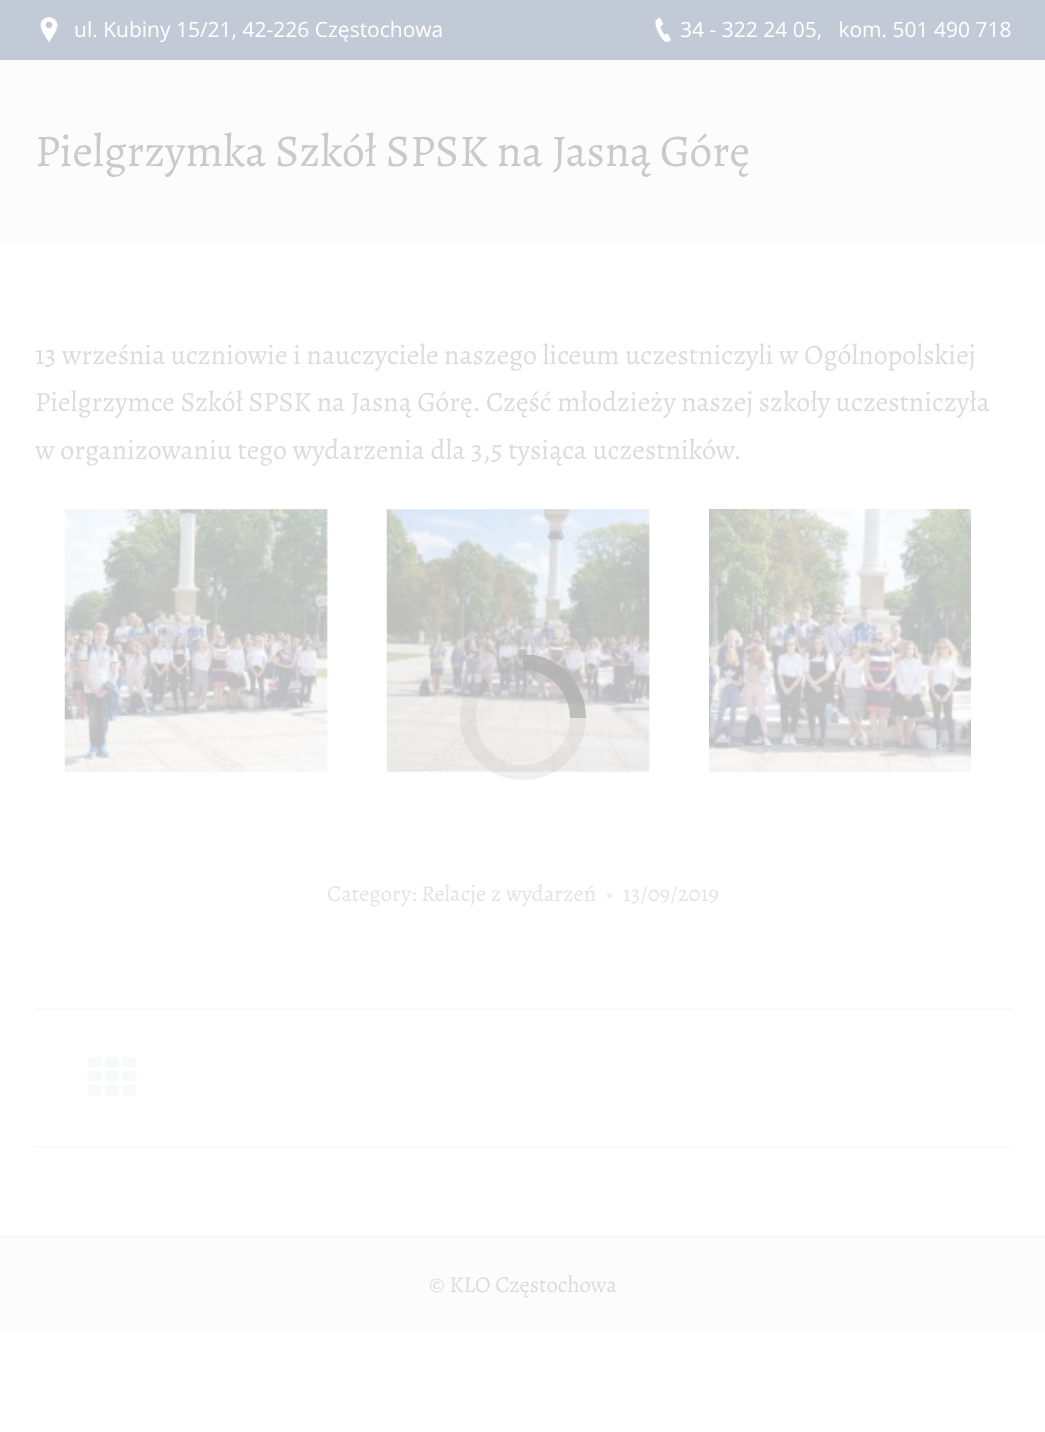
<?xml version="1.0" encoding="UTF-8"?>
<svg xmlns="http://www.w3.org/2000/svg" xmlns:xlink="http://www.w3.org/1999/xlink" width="1045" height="1432">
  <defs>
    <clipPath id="clip1"><rect x="460" y="655" width="126" height="126" /></clipPath>
  </defs>
  <rect width="100%" height="100%" fill="#ffffff" />
  <rect width="1045" height="60" fill="#c3cad7" />
  <image x="40" y="17" width="18" height="26" xlink:href="image1.png" />
  <image x="655" y="17" width="16" height="25" xlink:href="image2.png" />
  <rect y="60" width="1045" height="185" fill="#fcfcfc" />
  <image x="64" y="509" width="264" height="263" xlink:href="image3.png" />
  <image x="386" y="509" width="264" height="263" xlink:href="image4.png" />
  <image x="709" y="509" width="262" height="263" xlink:href="image5.png" />
  <circle cx="609.5" cy="895.5" r="2.5" fill="#ededed" />
  <rect x="35" y="1008" width="977" height="2" fill="#f9f9f9" />
  <rect x="35" y="1146" width="977" height="2" fill="#f9f9f9" />
  <image x="87" y="1057" width="50" height="39" xlink:href="image6.png" />
  <rect y="1238" width="1045" height="92" fill="#fcfcfc" />
  <rect y="1236" width="1045" height="2" fill="#f7f7f7" />
  <g clip-path="url(#clip1)">
    <path d="M 523 654 c -35 0 -63 29 -63 64 c 0 34 28 62 63 62 c 35 0 63 -28 63 -62 c 0 -35 -28 -64 -63 -64 m 0 16 c 26 0 47 21 47 48 c 0 26 -21 47 -47 47 c -26 0 -47 -21 -47 -47 c 0 -27 21 -48 47 -48" fill="#b1b1b1" fill-opacity="0.19" />
    <path d="M 523 654 c 35 0 63 29 63 64 h -16 c 0 -27 -21 -48 -47 -48 z" fill="#b1b1b1" fill-opacity="0.74" />
  </g>
  <text x="74" y="37" style="font-family: Open Sans; font-size: 21px; fill: #ffffff">ul. Kubiny 15/21, 42-226 Częstochowa</text>
  <text x="680" y="37" style="font-family: Open Sans; font-size: 21px; fill: #ffffff" xml:space="preserve">34 - 322 24 05,   kom. 501 490 718</text>
  <text x="35" y="166" style="font-family: Alegreya; font-size: 45.5px; fill: #cacaca">Pielgrzymka Szkół SPSK na Jasną Górę</text>
  <text x="35" y="364" style="font-family: Alegreya; font-size: 28px; fill: #dcdcdc">13 września uczniowie i nauczyciele naszego liceum uczestniczyli w Ogólnopolskiej</text>
  <text x="35" y="411" style="font-family: Alegreya; font-size: 28px; fill: #dcdcdc">Pielgrzymce Szkół SPSK na Jasną Górę. Część młodzieży naszej szkoły uczestniczyła</text>
  <text x="35" y="459" style="font-family: Alegreya; font-size: 28px; fill: #dcdcdc">w organizowaniu tego wydarzenia dla 3,5 tysiąca uczestników.</text>
  <text x="327" y="901" style="font-family: Alegreya; font-size: 22.75px; fill: #e4e4e4">Category: Relacje z wydarzeń</text>
  <text x="623" y="901" style="font-family: Alegreya; font-size: 22.75px; fill: #e4e4e4">13/09/2019</text>
  <text x="429" y="1292" style="font-family: Alegreya; font-size: 22.75px; fill: #dcdcdc">© KLO Częstochowa</text>
</svg>
